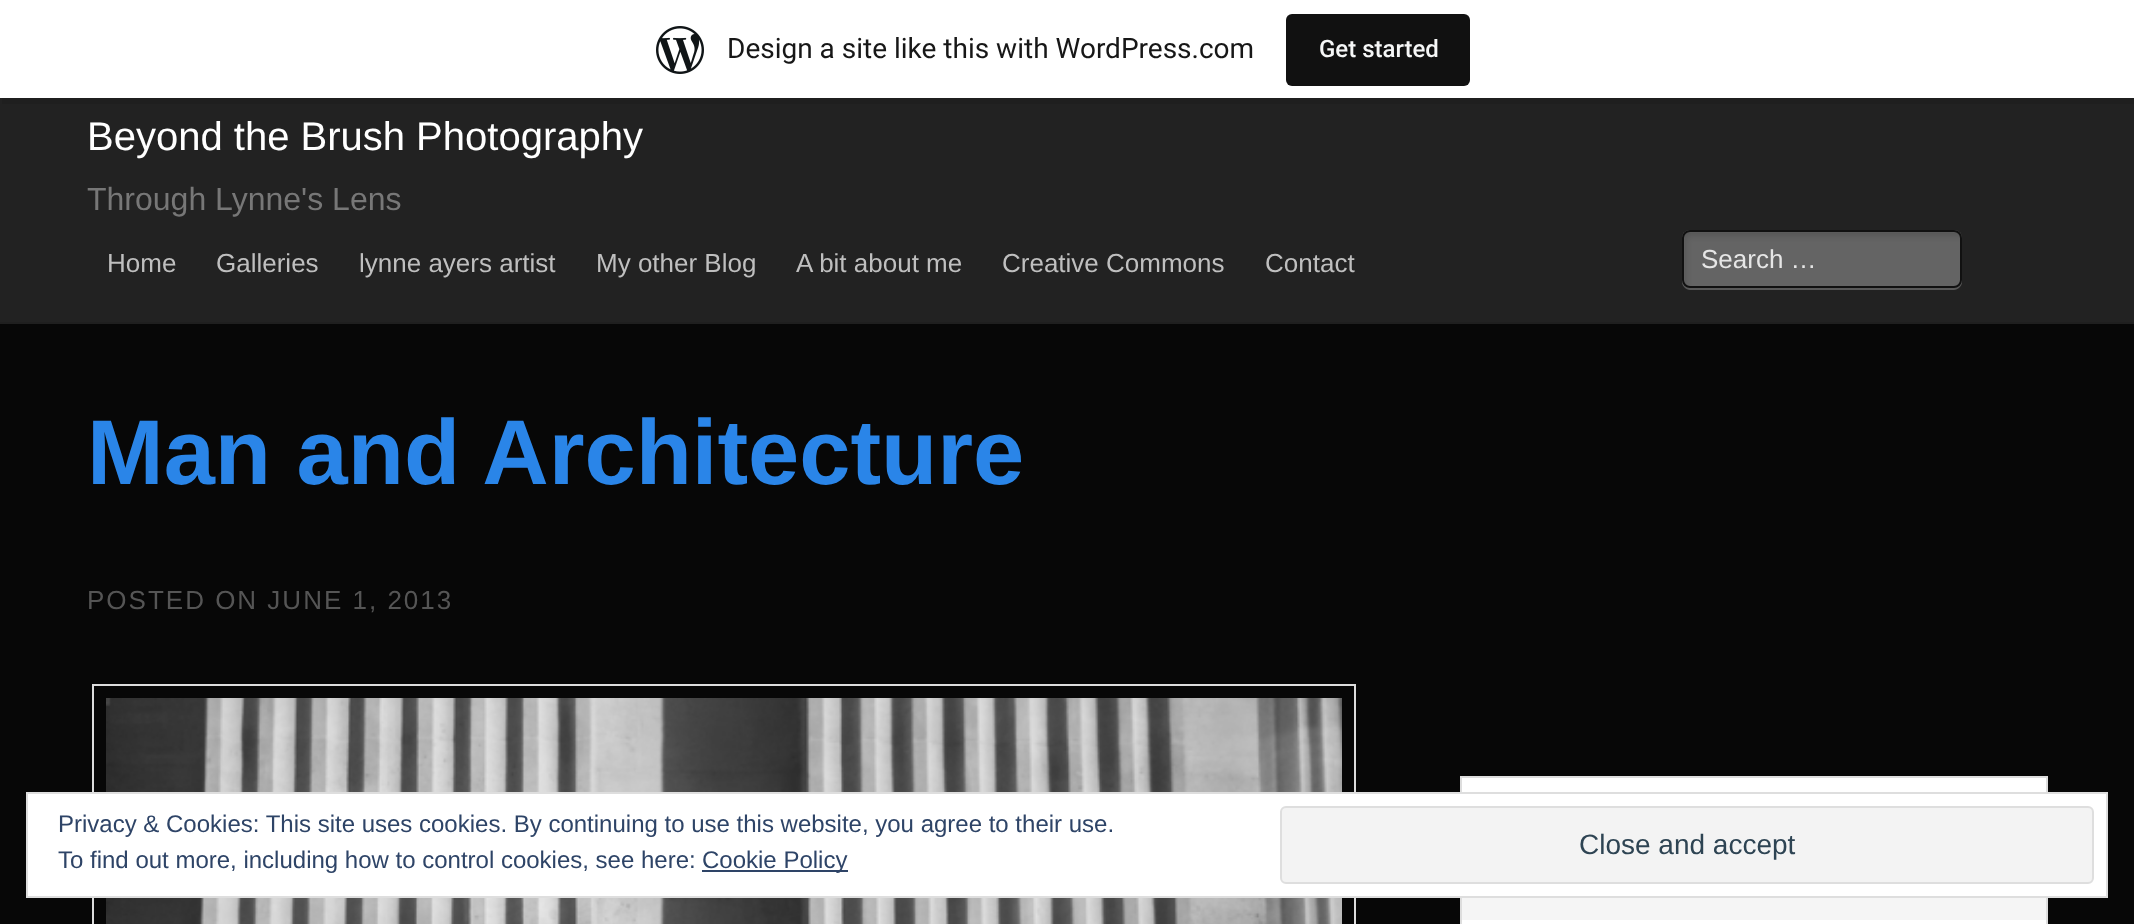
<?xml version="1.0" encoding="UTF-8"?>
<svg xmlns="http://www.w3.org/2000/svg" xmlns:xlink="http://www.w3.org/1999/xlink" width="2134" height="924">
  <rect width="100%" height="100%" fill="#070707" />
  <rect y="98" width="2134" height="224" fill="#222222" />
  <path d="M 2 98 v 6 h 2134 v -98 h -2 v 92 z" fill="#1f1f1f" />
  <rect width="2134" height="98" fill="#ffffff" />
  <image x="656" y="26" width="48" height="48" xlink:href="image1.png" />
  <rect x="1286" y="14" width="184" height="72" rx="6" fill="#111111" />
  <rect y="322" width="2134" height="2" fill="#1f1f1f" />
  <path d="M 1682 280 v 2 c 0 4 4 8 8 8 h 264 c 4 0 8 -4 8 -8 v -2 c 0 4 -4 8 -8 8 h -264 c -4 0 -8 -4 -8 -8 z" fill="#595959" />
  <rect x="1682" y="230" width="280" height="58" rx="8" fill="#ffffff" fill-opacity="0.3" />
  <image x="1683" y="231" width="278" height="56" xlink:href="image2.png" />
  <rect x="1683" y="231" width="278" height="56" rx="7" fill="none" stroke="#111111" stroke-width="2" />
  <rect x="93" y="685" width="1262" height="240" fill="none" stroke="#dddddd" stroke-width="2" />
  <image x="106" y="698" width="1236" height="226" xlink:href="image3.png" />
  <rect x="1462" y="778" width="584" height="146" fill="#ffffff" />
  <rect x="1460" y="776" width="588" height="2" fill="#dddddd" />
  <rect x="2046" y="776" width="2" height="148" fill="#dddddd" />
  <rect x="1460" y="776" width="2" height="148" fill="#dddddd" />
  <rect x="1462" y="898" width="584" height="22" fill="#f5f5f5" />
  <rect x="27" y="793" width="2080" height="104" fill="#ffffff" stroke="#dedede" stroke-width="2" />
  <rect x="702" y="870" width="146" height="2" fill="#2e4467" />
  <rect x="1281" y="807" width="812" height="76" rx="5" fill="#f3f3f3" stroke="#dedede" stroke-width="2" />
  <text x="727" y="58" style="font-family: Roboto; font-size: 28px; fill: #171717">Design a site like this with WordPress.com</text>
  <text x="1319" y="57" style="font-family: Roboto; font-size: 24px; font-weight: 500; fill: #f6f7f7">Get started</text>
  <text x="87" y="150" style="font-family: Liberation Sans; font-size: 40px; fill: #ffffff">Beyond the Brush Photography</text>
  <text x="87" y="210" style="font-family: Liberation Sans; font-size: 32px; fill: #777777">Through Lynne's Lens</text>
  <text x="107" y="272" style="font-family: Liberation Sans; font-size: 26px; fill: #bfbfbf">Home</text>
  <text x="216" y="272" style="font-family: Liberation Sans; font-size: 26px; fill: #bfbfbf">Galleries</text>
  <text x="359" y="272" style="font-family: Liberation Sans; font-size: 26px; fill: #bfbfbf">lynne ayers artist</text>
  <text x="596" y="272" style="font-family: Liberation Sans; font-size: 26px; fill: #bfbfbf">My other Blog</text>
  <text x="796" y="272" style="font-family: Liberation Sans; font-size: 26px; fill: #bfbfbf">A bit about me</text>
  <text x="1002" y="272" style="font-family: Liberation Sans; font-size: 26px; fill: #bfbfbf">Creative Commons</text>
  <text x="1265" y="272" style="font-family: Liberation Sans; font-size: 26px; fill: #bfbfbf">Contact</text>
  <text x="1701" y="268" style="font-family: Liberation Sans; font-size: 26px; fill: #e6e6e6">Search …</text>
  <text x="87" y="484" style="font-family: Liberation Sans; font-size: 92px; font-weight: bold; fill: #2a85e8">Man and Architecture</text>
  <text x="87" y="609" style="font-family: Liberation Sans; font-size: 26px; letter-spacing: 2px; fill: #555555">POSTED ON JUNE 1, 2013</text>
  <text x="58" y="832" style="font-family: Liberation Sans; font-size: 24px; fill: #2e4467">Privacy &amp; Cookies: This site uses cookies. By continuing to use this website, you agree to their use.</text>
  <text x="58" y="868" style="font-family: Liberation Sans; font-size: 24px; fill: #2e4467">To find out more, including how to control cookies, see here:</text>
  <text x="702" y="868" style="font-family: Liberation Sans; font-size: 24px; fill: #2e4467">Cookie Policy</text>
  <text x="1579" y="854" style="font-family: Liberation Sans; font-size: 28px; fill: #2e4453">Close and accept</text>
</svg>
